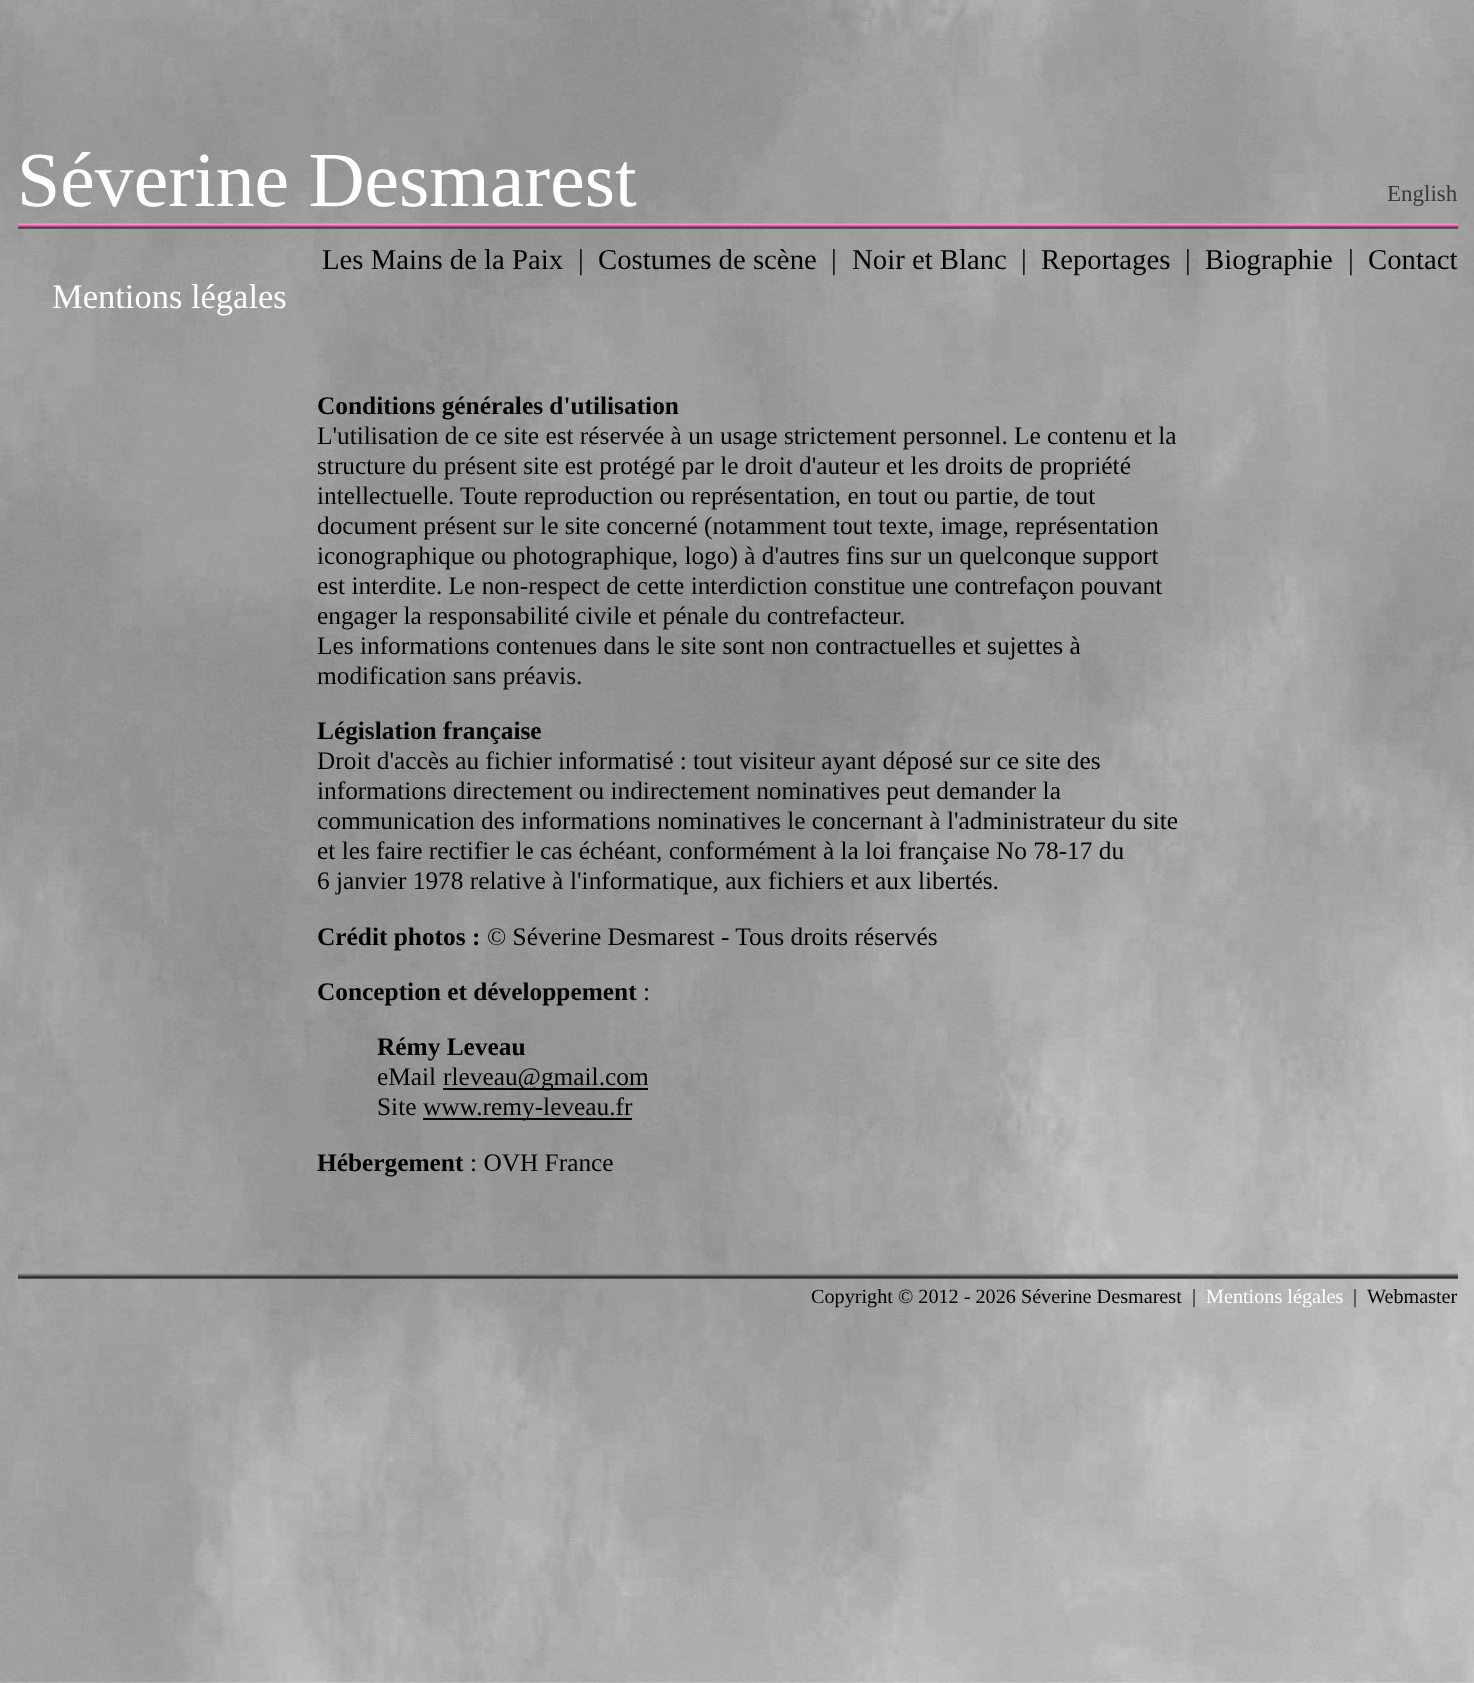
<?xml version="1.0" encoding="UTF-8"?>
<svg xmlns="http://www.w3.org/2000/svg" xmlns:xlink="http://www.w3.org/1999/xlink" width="1474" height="1683">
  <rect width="100%" height="100%" fill="#ffffff" />
  <image x="0" y="0" width="1474" height="1683" xlink:href="image1.png" />
  <rect x="18" y="228" width="1440" height="1" fill="#555555" />
  <image x="18" y="223" width="1440" height="5" xlink:href="image2.png" />
  <rect x="443" y="1088" width="205" height="2" fill="#000000" />
  <rect x="423" y="1118" width="209" height="2" fill="#000000" />
  <rect x="18" y="1278" width="1440" height="1" fill="#555555" />
  <image x="18" y="1273" width="1440" height="5" xlink:href="image3.png" />
  <text x="17" y="206" style="font-family: Liberation Serif; font-size: 77.75px; fill: #ffffff">Séverine Desmarest</text>
  <text x="1387" y="201" style="font-family: Liberation Serif; font-size: 23px; fill: #393939">English</text>
  <text x="322" y="269" style="font-family: Liberation Serif; font-size: 28.75px; fill: #000000">Les Mains de la Paix</text>
  <text x="578" y="269" style="font-family: Liberation Serif; font-size: 28.75px; fill: #000000">|</text>
  <text x="598" y="269" style="font-family: Liberation Serif; font-size: 28.75px; fill: #000000">Costumes de scène</text>
  <text x="831" y="269" style="font-family: Liberation Serif; font-size: 28.75px; fill: #000000">|</text>
  <text x="852" y="269" style="font-family: Liberation Serif; font-size: 28.75px; fill: #000000">Noir et Blanc</text>
  <text x="1021" y="269" style="font-family: Liberation Serif; font-size: 28.75px; fill: #000000">|</text>
  <text x="1041" y="269" style="font-family: Liberation Serif; font-size: 28.75px; fill: #000000">Reportages</text>
  <text x="1185" y="269" style="font-family: Liberation Serif; font-size: 28.75px; fill: #000000">|</text>
  <text x="1205" y="269" style="font-family: Liberation Serif; font-size: 28.75px; fill: #000000">Biographie</text>
  <text x="1348" y="269" style="font-family: Liberation Serif; font-size: 28.75px; fill: #000000">|</text>
  <text x="1368" y="269" style="font-family: Liberation Serif; font-size: 28.75px; fill: #000000">Contact</text>
  <text x="52" y="308" style="font-family: Liberation Serif; font-size: 34.5px; fill: #ffffff">Mentions légales</text>
  <text x="317" y="414" style="font-family: Liberation Serif; font-size: 25.35px; font-weight: bold; fill: #000000">Conditions générales d'utilisation</text>
  <text x="317" y="444" style="font-family: Liberation Serif; font-size: 25.35px; fill: #000000">L'utilisation de ce site est réservée à un usage strictement personnel. Le contenu et la</text>
  <text x="317" y="474" style="font-family: Liberation Serif; font-size: 25.35px; fill: #000000">structure du présent site est protégé par le droit d'auteur et les droits de propriété</text>
  <text x="317" y="504" style="font-family: Liberation Serif; font-size: 25.35px; fill: #000000">intellectuelle. Toute reproduction ou représentation, en tout ou partie, de tout</text>
  <text x="317" y="534" style="font-family: Liberation Serif; font-size: 25.35px; fill: #000000">document présent sur le site concerné (notamment tout texte, image, représentation</text>
  <text x="317" y="564" style="font-family: Liberation Serif; font-size: 25.35px; fill: #000000">iconographique ou photographique, logo) à d'autres fins sur un quelconque support</text>
  <text x="317" y="594" style="font-family: Liberation Serif; font-size: 25.35px; fill: #000000">est interdite. Le non-respect de cette interdiction constitue une contrefaçon pouvant</text>
  <text x="317" y="624" style="font-family: Liberation Serif; font-size: 25.35px; fill: #000000">engager la responsabilité civile et pénale du contrefacteur.</text>
  <text x="317" y="654" style="font-family: Liberation Serif; font-size: 25.35px; fill: #000000">Les informations contenues dans le site sont non contractuelles et sujettes à</text>
  <text x="317" y="684" style="font-family: Liberation Serif; font-size: 25.35px; fill: #000000">modification sans préavis.</text>
  <text x="317" y="739" style="font-family: Liberation Serif; font-size: 25.35px; font-weight: bold; fill: #000000">Législation française</text>
  <text x="317" y="769" style="font-family: Liberation Serif; font-size: 25.35px; fill: #000000">Droit d'accès au fichier informatisé : tout visiteur ayant déposé sur ce site des</text>
  <text x="317" y="799" style="font-family: Liberation Serif; font-size: 25.35px; fill: #000000">informations directement ou indirectement nominatives peut demander la</text>
  <text x="317" y="829" style="font-family: Liberation Serif; font-size: 25.35px; fill: #000000">communication des informations nominatives le concernant à l'administrateur du site</text>
  <text x="317" y="859" style="font-family: Liberation Serif; font-size: 25.35px; fill: #000000">et les faire rectifier le cas échéant, conformément à la loi française No 78-17 du</text>
  <text x="317" y="889" style="font-family: Liberation Serif; font-size: 25.35px; fill: #000000">6 janvier 1978 relative à</text>
  <text x="570" y="889" style="font-family: Liberation Serif; font-size: 25.35px; fill: #000000">l'informatique, aux fichiers et aux libertés.</text>
  <text x="317" y="945" style="font-family: Liberation Serif; font-size: 25.35px; font-weight: bold; fill: #000000">Crédit photos :</text>
  <text x="487" y="945" style="font-family: Liberation Serif; font-size: 25.35px; fill: #000000">© Séverine Desmarest - Tous droits réservés</text>
  <text x="317" y="1000" style="font-family: Liberation Serif; font-size: 25.35px; font-weight: bold; fill: #000000">Conception et développement</text>
  <text x="643" y="1000" style="font-family: Liberation Serif; font-size: 25.35px; fill: #000000">:</text>
  <text x="377" y="1055" style="font-family: Liberation Serif; font-size: 25.35px; font-weight: bold; fill: #000000">Rémy Leveau</text>
  <text x="377" y="1085" style="font-family: Liberation Serif; font-size: 25.35px; fill: #000000">eMail</text>
  <text x="443" y="1085" style="font-family: Liberation Serif; font-size: 25.35px; fill: #000000">rleveau@gmail.com</text>
  <text x="377" y="1115" style="font-family: Liberation Serif; font-size: 25.35px; fill: #000000">Site</text>
  <text x="423" y="1115" style="font-family: Liberation Serif; font-size: 25.35px; fill: #000000">www.remy-leveau.fr</text>
  <text x="317" y="1171" style="font-family: Liberation Serif; font-size: 25.35px; font-weight: bold; fill: #000000">Hébergement</text>
  <text x="470" y="1171" style="font-family: Liberation Serif; font-size: 25.35px; fill: #000000">: OVH France</text>
  <text x="811" y="1303" style="font-family: Liberation Serif; font-size: 20.2px; fill: #000000" xml:space="preserve">Copyright © 2012 - 2026 Séverine Desmarest  |</text>
  <text x="1206" y="1303" style="font-family: Liberation Serif; font-size: 20.2px; fill: #ffffff">Mentions légales</text>
  <text x="1353" y="1303" style="font-family: Liberation Serif; font-size: 20.2px; fill: #000000">|</text>
  <text x="1367" y="1303" style="font-family: Liberation Serif; font-size: 20.2px; fill: #000000">Webmaster</text>
</svg>
